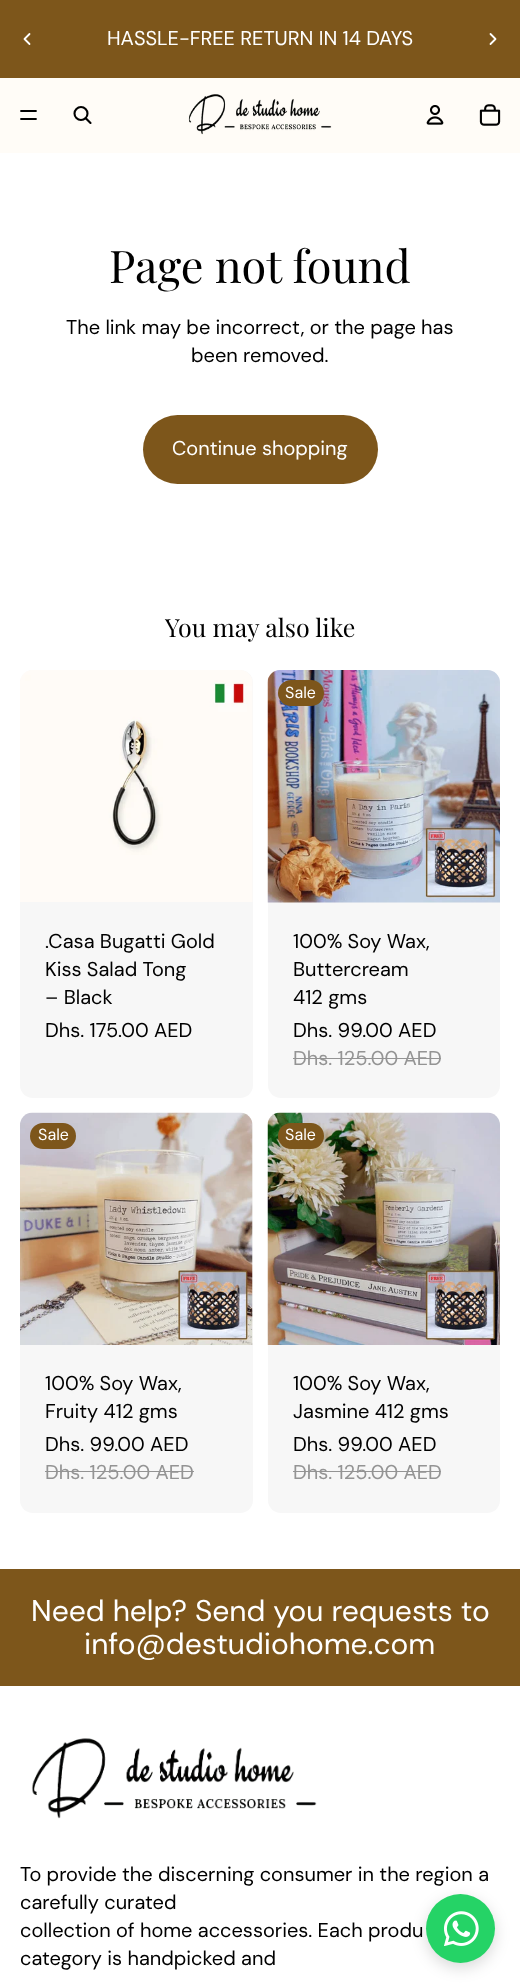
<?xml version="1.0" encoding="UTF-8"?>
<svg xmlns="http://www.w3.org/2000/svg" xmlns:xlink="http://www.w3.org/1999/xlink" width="520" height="1987">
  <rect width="100%" height="100%" fill="#ffffff" />
  <rect width="520" height="78" fill="#7d561b" />
  <path d="M 29.5 34 l -5 5 l 5 5" fill="none" stroke="#ffffff" stroke-width="1.8" stroke-linecap="round" stroke-linejoin="round" />
  <path d="M 490.5 34 l 5 5 l -5 5" fill="none" stroke="#ffffff" stroke-width="1.8" stroke-linecap="round" stroke-linejoin="round" />
  <rect y="78" width="520" height="75" fill="#fffcf7" />
  <path d="M 21 111 h 15 m -15 8 h 15" fill="none" stroke="#000000" stroke-width="1.8" stroke-linecap="round" />
  <circle cx="81" cy="113.5" r="6.5" fill="none" stroke="#000000" stroke-width="2.1" />
  <path d="M 86 118.5 l 4.5 4.5" fill="none" stroke="#000000" stroke-width="2.1" stroke-linecap="round" stroke-linejoin="round" />
  <image x="188" y="94" width="144" height="41" xlink:href="image1.png" />
  <image x="426" y="105" width="18" height="20" xlink:href="image2.png" />
  <image x="479" y="104" width="22" height="22" xlink:href="image3.png" />
  <rect x="143" y="415" width="235" height="69" rx="34.5" fill="#7d561b" />
  <rect x="20" y="670" width="233" height="428" rx="13" fill="#f7f7f7" />
  <image x="20" y="670" width="233" height="232" xlink:href="image4.png" />
  <rect x="268" y="670" width="232" height="428" rx="13" fill="#f7f7f7" />
  <image x="267" y="670" width="233" height="233" xlink:href="image5.png" />
  <rect x="278" y="680" width="46" height="26" rx="13" fill="#7d561b" />
  <rect x="293" y="1058" width="148" height="1" fill="#949494" />
  <rect x="20" y="1113" width="233" height="400" rx="13" fill="#f7f7f7" />
  <image x="20" y="1112" width="233" height="233" xlink:href="image6.png" />
  <rect x="30" y="1123" width="46" height="26" rx="13" fill="#7d561b" />
  <rect x="45" y="1471" width="149" height="1" fill="#949494" />
  <rect x="268" y="1113" width="232" height="400" rx="13" fill="#f7f7f7" />
  <image x="267" y="1112" width="233" height="233" xlink:href="image7.png" />
  <rect x="278" y="1123" width="46" height="26" rx="13" fill="#7d561b" />
  <rect x="293" y="1471" width="148" height="1" fill="#949494" />
  <rect y="1569" width="520" height="117" fill="#7d561b" />
  <image x="31" y="1738" width="286" height="81" xlink:href="image8.png" />
  <rect x="426" y="1899" width="69" height="69" rx="34.5" fill="#000000" fill-opacity="0.15" filter="blur(7.5px)" />
  <circle cx="460.5" cy="1928.5" r="34.5" fill="#25d366" />
  <image x="444" y="1911" width="35" height="35" xlink:href="image9.png" />
  <text x="107" y="45" style="font-family: DM Sans; font-size: 20px; fill: #ffffff">HASSLE-FREE RETURN IN 14 DAYS</text>
  <text x="109" y="283" style="font-family: Playfair Display; font-size: 45px; fill: #000000">Page not found</text>
  <text x="66" y="334" style="font-family: DM Sans; font-size: 20px; fill: #000000">The link may be incorrect, or the page has</text>
  <text x="191" y="362" style="font-family: DM Sans; font-size: 20px; fill: #000000">been removed.</text>
  <text x="172" y="455" style="font-family: DM Sans; font-size: 20px; fill: #ffffff">Continue shopping</text>
  <text x="165" y="637" style="font-family: Playfair Display; font-size: 25px; fill: #000000">You may also like</text>
  <text x="45" y="948" style="font-family: DM Sans; font-size: 20px; fill: #000000">.Casa Bugatti Gold</text>
  <text x="45" y="976" style="font-family: DM Sans; font-size: 20px; fill: #000000">Kiss Salad Tong</text>
  <text x="45" y="1004" style="font-family: DM Sans; font-size: 20px; fill: #000000">– Black</text>
  <text x="45" y="1037" style="font-family: DM Sans; font-size: 20px; fill: #000000">Dhs. 175.00 AED</text>
  <text x="285" y="698" style="font-family: 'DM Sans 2'; font-size: 16px; fill: #ffffff">Sale</text>
  <text x="293" y="948" style="font-family: DM Sans; font-size: 20px; fill: #000000">100% Soy Wax,</text>
  <text x="293" y="976" style="font-family: DM Sans; font-size: 20px; fill: #000000">Buttercream</text>
  <text x="293" y="1004" style="font-family: DM Sans; font-size: 20px; fill: #000000">412 gms</text>
  <text x="293" y="1037" style="font-family: DM Sans; font-size: 20px; fill: #000000">Dhs. 99.00 AED</text>
  <text x="293" y="1065" style="font-family: DM Sans; font-size: 20px; fill: #949494">Dhs. 125.00 AED</text>
  <text x="38" y="1140" style="font-family: 'DM Sans 2'; font-size: 16px; fill: #ffffff">Sale</text>
  <text x="45" y="1390" style="font-family: DM Sans; font-size: 20px; fill: #000000">100% Soy Wax,</text>
  <text x="45" y="1418" style="font-family: DM Sans; font-size: 20px; fill: #000000">Fruity 412 gms</text>
  <text x="45" y="1451" style="font-family: DM Sans; font-size: 20px; fill: #000000">Dhs. 99.00 AED</text>
  <text x="45" y="1479" style="font-family: DM Sans; font-size: 20px; fill: #949494">Dhs. 125.00 AED</text>
  <text x="285" y="1140" style="font-family: 'DM Sans 2'; font-size: 16px; fill: #ffffff">Sale</text>
  <text x="293" y="1390" style="font-family: DM Sans; font-size: 20px; fill: #000000">100% Soy Wax,</text>
  <text x="293" y="1418" style="font-family: DM Sans; font-size: 20px; fill: #000000">Jasmine 412 gms</text>
  <text x="293" y="1451" style="font-family: DM Sans; font-size: 20px; fill: #000000">Dhs. 99.00 AED</text>
  <text x="293" y="1479" style="font-family: DM Sans; font-size: 20px; fill: #949494">Dhs. 125.00 AED</text>
  <text x="31" y="1621" style="font-family: 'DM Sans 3'; font-size: 30px; fill: #ffffff">Need help? Send you requests to</text>
  <text x="84" y="1654" style="font-family: 'DM Sans 3'; font-size: 30px; fill: #ffffff">info@destudiohome.com</text>
  <text x="20" y="1881" style="font-family: DM Sans; font-size: 20px; fill: #000000">To provide the discerning consumer in the region a</text>
  <text x="20" y="1909" style="font-family: DM Sans; font-size: 20px; fill: #000000">carefully curated</text>
  <text x="20" y="1937" style="font-family: DM Sans; font-size: 20px; fill: #000000">collection of home accessories. Each produ</text>
  <text x="20" y="1965" style="font-family: DM Sans; font-size: 20px; fill: #000000">category is handpicked and</text>
</svg>
